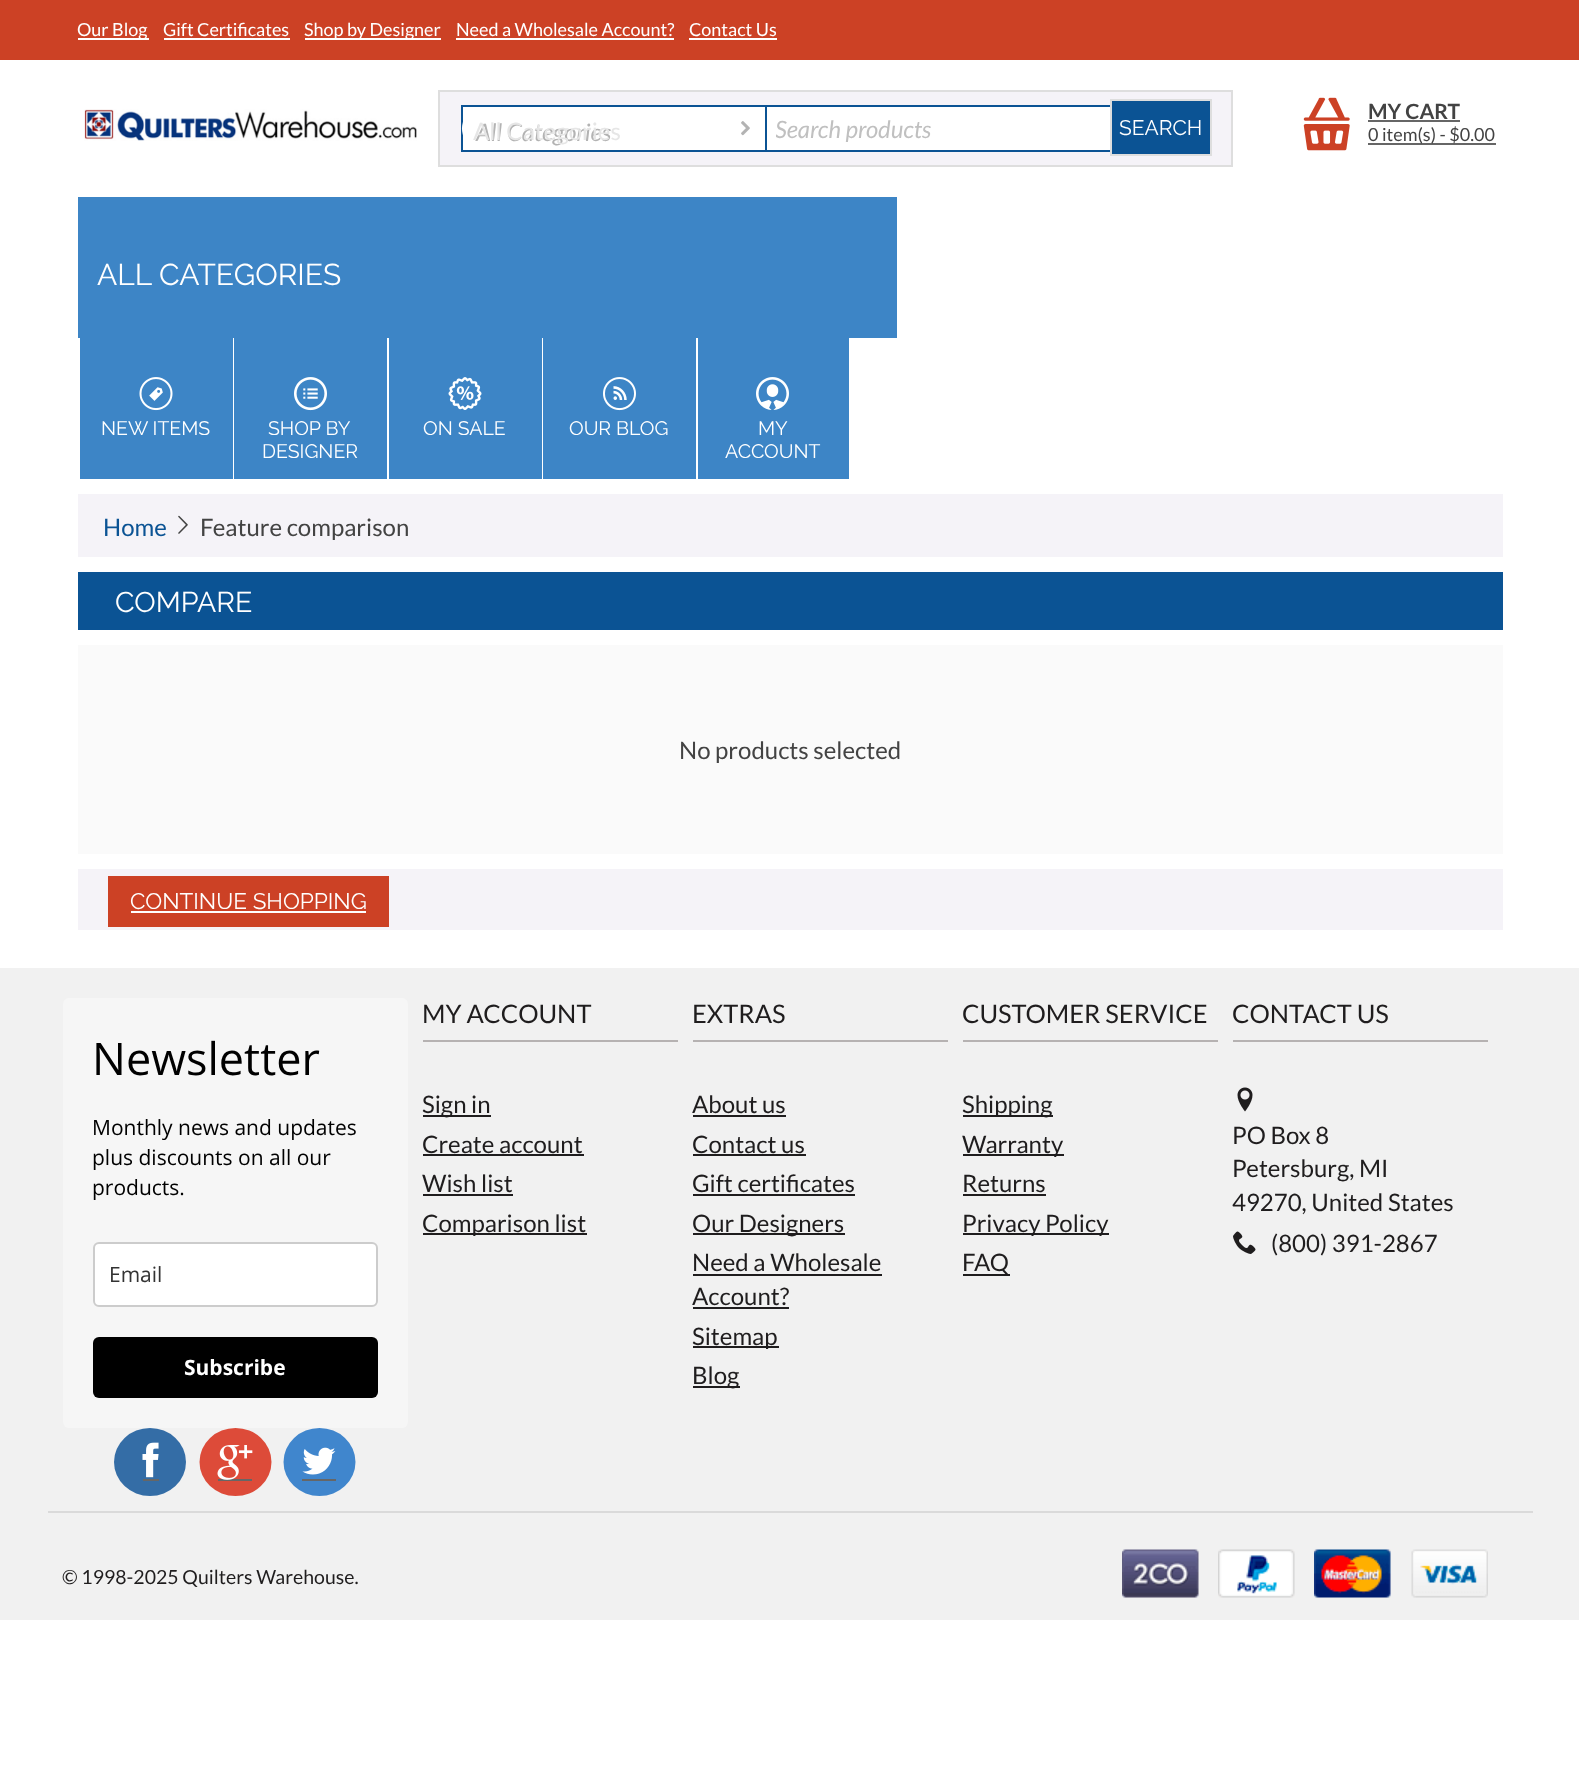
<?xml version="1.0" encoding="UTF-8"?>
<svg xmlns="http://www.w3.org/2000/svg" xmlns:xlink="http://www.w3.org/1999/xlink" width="1579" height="1775">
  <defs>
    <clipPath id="clip1"><rect x="776" y="114" width="429" height="29" /></clipPath>
  </defs>
  <rect width="100%" height="100%" fill="#ffffff" />
  <rect width="1579" height="60" fill="#cc4125" />
  <rect x="78" y="38" width="71" height="2" fill="#ffffff" />
  <rect x="164" y="38" width="126" height="2" fill="#ffffff" />
  <rect x="305" y="38" width="136" height="2" fill="#ffffff" />
  <rect x="456" y="38" width="218" height="2" fill="#ffffff" />
  <rect x="689" y="38" width="88" height="2" fill="#ffffff" />
  <image x="84" y="109" width="333" height="32" xlink:href="image1.png" />
  <rect x="439" y="91" width="793" height="75" fill="#f5f3f8" stroke="#dedede" stroke-width="2" />
  <rect x="463" y="107" width="647" height="43" fill="#ffffff" />
  <rect x="462" y="106" width="748" height="45" fill="none" stroke="#0b5394" stroke-width="2" />
  <rect x="1111" y="100" width="100" height="55" fill="#0b5394" stroke="#dedede" stroke-width="2" />
  <path d="M 483.5 107 h 283.5 v 43 h -283.5 c -12 0 -21.5 -9.5 -21.5 -21.5 c 0 -12 9.5 -21.5 21.5 -21.5 z" fill="#ffffff" />
  <rect x="765" y="107" width="2" height="43" fill="#0b5394" />
  <image x="741" y="121" width="9" height="15" xlink:href="image2.png" />
  <image x="1303" y="97" width="47" height="54" xlink:href="image3.png" />
  <rect x="1368" y="120" width="92" height="2" fill="#666666" />
  <rect x="1368" y="143" width="128" height="2" fill="#666666" />
  <rect x="78" y="197" width="819" height="141" fill="#3d85c6" />
  <rect x="80" y="338" width="153" height="141" fill="#3d85c6" />
  <image x="139" y="377" width="34" height="34" xlink:href="image4.png" />
  <rect x="234" y="338" width="153" height="141" fill="#3d85c6" />
  <image x="294" y="377" width="33" height="34" xlink:href="image5.png" />
  <rect x="389" y="338" width="153" height="141" fill="#3d85c6" />
  <image x="448" y="377" width="34" height="33" xlink:href="image6.png" />
  <rect x="543" y="338" width="153" height="141" fill="#3d85c6" />
  <image x="603" y="377" width="33" height="34" xlink:href="image7.png" />
  <rect x="698" y="338" width="151" height="141" fill="#3d85c6" />
  <image x="756" y="377" width="33" height="33" xlink:href="image8.png" />
  <rect x="78" y="494" width="1425" height="63" fill="#f5f3f8" />
  <image x="178" y="515" width="10" height="19" xlink:href="image9.png" />
  <rect x="78" y="572" width="1425" height="58" fill="#0b5394" />
  <rect x="78" y="645" width="1425" height="209" fill="#fafafa" />
  <rect x="78" y="869" width="1425" height="61" fill="#f5f3f8" />
  <rect x="108" y="876" width="281" height="51" fill="#cc4125" />
  <rect x="131" y="911" width="235" height="2" fill="#ffffff" />
  <rect y="968" width="1579" height="652" fill="#f1f1f1" />
  <rect x="48" y="1511" width="1485" height="2" fill="#dadada" />
  <rect x="63" y="998" width="345" height="430" rx="6" fill="#f6f6f6" />
  <rect x="94" y="1243" width="283" height="63" rx="5" fill="#ffffff" stroke="#cccccc" stroke-width="2" />
  <rect x="93" y="1337" width="285" height="61" rx="6" fill="#000000" />
  <ellipse cx="150" cy="1462" rx="36" ry="34" fill="#346da6" />
  <image x="142" y="1442" width="17" height="36" xlink:href="image10.png" />
  <rect x="143" y="1479" width="16" height="2" fill="#666666" />
  <ellipse cx="235.5" cy="1462" rx="36" ry="34" fill="#dd4b39" />
  <rect x="218" y="1479" width="34" height="2" fill="#666666" />
  <image x="217" y="1445" width="36" height="35" xlink:href="image11.png" />
  <ellipse cx="319.5" cy="1462" rx="36" ry="34" fill="#4086cd" />
  <image x="302" y="1447" width="34" height="28" xlink:href="image12.png" />
  <rect x="302" y="1479" width="34" height="2" fill="#666666" />
  <rect x="423" y="1040" width="255" height="2" fill="#b6b2b2" />
  <rect x="423" y="1115" width="68" height="2" fill="#1f1d1e" />
  <rect x="423" y="1154" width="161" height="2" fill="#1f1d1e" />
  <rect x="423" y="1194" width="90" height="2" fill="#1f1d1e" />
  <rect x="423" y="1233" width="164" height="2" fill="#1f1d1e" />
  <rect x="693" y="1040" width="255" height="2" fill="#b6b2b2" />
  <rect x="693" y="1115" width="93" height="2" fill="#1f1d1e" />
  <rect x="693" y="1154" width="113" height="2" fill="#1f1d1e" />
  <rect x="693" y="1194" width="162" height="2" fill="#1f1d1e" />
  <rect x="693" y="1233" width="152" height="2" fill="#1f1d1e" />
  <rect x="693" y="1274" width="189" height="2" fill="#1f1d1e" />
  <rect x="693" y="1307" width="96" height="2" fill="#1f1d1e" />
  <rect x="693" y="1346" width="86" height="2" fill="#1f1d1e" />
  <rect x="693" y="1386" width="47" height="2" fill="#1f1d1e" />
  <rect x="963" y="1040" width="255" height="2" fill="#b6b2b2" />
  <rect x="963" y="1115" width="90" height="2" fill="#1f1d1e" />
  <rect x="963" y="1154" width="101" height="2" fill="#1f1d1e" />
  <rect x="963" y="1194" width="83" height="2" fill="#1f1d1e" />
  <rect x="963" y="1233" width="146" height="2" fill="#1f1d1e" />
  <rect x="963" y="1274" width="47" height="2" fill="#1f1d1e" />
  <rect x="1233" y="1040" width="255" height="2" fill="#b6b2b2" />
  <image x="1237" y="1087" width="16" height="25" xlink:href="image13.png" />
  <image x="1233" y="1231" width="23" height="23" xlink:href="image14.png" />
  <image x="1122" y="1549" width="77" height="49" xlink:href="image15.png" />
  <image x="1218" y="1549" width="77" height="49" xlink:href="image16.png" />
  <image x="1314" y="1549" width="77" height="49" xlink:href="image17.png" />
  <image x="1411" y="1549" width="77" height="49" xlink:href="image18.png" />
  <text x="77" y="36" style="font-family: Lato; font-size: 18px; fill: #ffffff">Our Blog</text>
  <text x="163" y="36" style="font-family: Lato; font-size: 18px; fill: #ffffff">Gift Certificates</text>
  <text x="304" y="36" style="font-family: Lato; font-size: 18px; fill: #ffffff">Shop by Designer</text>
  <text x="456" y="36" style="font-family: Lato; font-size: 18px; fill: #ffffff">Need a Wholesale Account?</text>
  <text x="689" y="36" style="font-family: Lato; font-size: 18px; fill: #ffffff">Contact Us</text>
  <g clip-path="url(#clip1)">
    <text x="775" y="138" style="font-family: Lato; font-size: 24px; font-style: italic; fill: #c0c0c0">Search products</text>
  </g>
  <text x="1119" y="135" style="font-family: Raleway; font-size: 21px; fill: #ffffff">SEARCH</text>
  <text x="476" y="141" style="font-family: Lato; font-size: 24px; font-style: italic; fill: #b3b3b3">All Categories</text>
  <text x="473" y="140" style="font-family: Lato; font-size: 24px; fill: #e6e6e6">All Categories</text>
  <text x="1368" y="119" style="font-family: Lato; font-size: 21px; font-weight: bold; fill: #434343">MY CART</text>
  <text x="1368" y="141" style="font-family: Lato; font-size: 18px; fill: #434343">0 item(s) - $0.00</text>
  <text x="97" y="285" style="font-family: Raleway; font-size: 30px; fill: #ffffff">ALL CATEGORIES</text>
  <text x="101" y="435" style="font-family: Raleway; font-size: 19.5px; fill: #ffffff">NEW ITEMS</text>
  <text x="268" y="435" style="font-family: Raleway; font-size: 19.5px; fill: #ffffff">SHOP BY</text>
  <text x="262" y="458" style="font-family: Raleway; font-size: 19.5px; fill: #ffffff">DESIGNER</text>
  <text x="423" y="435" style="font-family: Raleway; font-size: 19.5px; fill: #ffffff">ON SALE</text>
  <text x="569" y="435" style="font-family: Raleway; font-size: 19.5px; fill: #ffffff">OUR BLOG</text>
  <text x="758" y="435" style="font-family: Raleway; font-size: 19.5px; fill: #ffffff">MY</text>
  <text x="725" y="458" style="font-family: Raleway; font-size: 19.5px; fill: #ffffff">ACCOUNT</text>
  <text x="103" y="536" style="font-family: Lato; font-size: 24px; fill: #0b5394">Home</text>
  <text x="200" y="536" style="font-family: Lato; font-size: 24px; fill: #434343">Feature comparison</text>
  <text x="115" y="612" style="font-family: Raleway; font-size: 28.5px; fill: #ffffff">COMPARE</text>
  <text x="679" y="759" style="font-family: Lato; font-size: 24px; fill: #434343">No products selected</text>
  <text x="130" y="909" style="font-family: Raleway; font-size: 22.5px; fill: #ffffff">CONTINUE SHOPPING</text>
  <text x="92" y="1075" style="font-family: Open Sans; font-size: 45px; fill: #000000">Newsletter</text>
  <text x="92" y="1135" style="font-family: Open Sans; font-size: 21px; fill: #000000">Monthly news and updates</text>
  <text x="92" y="1165" style="font-family: Open Sans; font-size: 21px; fill: #000000">plus discounts on all our</text>
  <text x="92" y="1195" style="font-family: Open Sans; font-size: 21px; fill: #000000">products.</text>
  <text x="109" y="1282" style="font-family: Open Sans; font-size: 21px; fill: #333333">Email</text>
  <text x="184" y="1375" style="font-family: Open Sans; font-size: 21px; font-weight: bold; fill: #ffffff">Subscribe</text>
  <text x="422" y="1023" style="font-family: Lato; font-size: 25.5px; fill: #1f1d1e">MY ACCOUNT</text>
  <text x="422" y="1113" style="font-family: Lato; font-size: 24px; fill: #1f1d1e">Sign in</text>
  <text x="422" y="1153" style="font-family: Lato; font-size: 24px; fill: #1f1d1e">Create account</text>
  <text x="422" y="1192" style="font-family: Lato; font-size: 24px; fill: #1f1d1e">Wish list</text>
  <text x="422" y="1232" style="font-family: Lato; font-size: 24px; fill: #1f1d1e">Comparison list</text>
  <text x="692" y="1023" style="font-family: Lato; font-size: 25.5px; fill: #1f1d1e">EXTRAS</text>
  <text x="692" y="1113" style="font-family: Lato; font-size: 24px; fill: #1f1d1e">About us</text>
  <text x="692" y="1153" style="font-family: Lato; font-size: 24px; fill: #1f1d1e">Contact us</text>
  <text x="692" y="1192" style="font-family: Lato; font-size: 24px; fill: #1f1d1e">Gift certificates</text>
  <text x="692" y="1232" style="font-family: Lato; font-size: 24px; fill: #1f1d1e">Our Designers</text>
  <text x="692" y="1271" style="font-family: Lato; font-size: 24px; fill: #1f1d1e">Need a Wholesale</text>
  <text x="692" y="1305" style="font-family: Lato; font-size: 24px; fill: #1f1d1e">Account?</text>
  <text x="692" y="1345" style="font-family: Lato; font-size: 24px; fill: #1f1d1e">Sitemap</text>
  <text x="692" y="1384" style="font-family: Lato; font-size: 24px; fill: #1f1d1e">Blog</text>
  <text x="962" y="1023" style="font-family: Lato; font-size: 25.5px; fill: #1f1d1e">CUSTOMER SERVICE</text>
  <text x="962" y="1113" style="font-family: Lato; font-size: 24px; fill: #1f1d1e">Shipping</text>
  <text x="962" y="1153" style="font-family: Lato; font-size: 24px; fill: #1f1d1e">Warranty</text>
  <text x="962" y="1192" style="font-family: Lato; font-size: 24px; fill: #1f1d1e">Returns</text>
  <text x="962" y="1232" style="font-family: Lato; font-size: 24px; fill: #1f1d1e">Privacy Policy</text>
  <text x="962" y="1271" style="font-family: Lato; font-size: 24px; fill: #1f1d1e">FAQ</text>
  <text x="1232" y="1023" style="font-family: Lato; font-size: 25.5px; fill: #1f1d1e">CONTACT US</text>
  <text x="1232" y="1144" style="font-family: Lato; font-size: 24px; fill: #1f1d1e">PO Box 8</text>
  <text x="1232" y="1177" style="font-family: Lato; font-size: 24px; fill: #1f1d1e">Petersburg, MI</text>
  <text x="1232" y="1211" style="font-family: Lato; font-size: 24px; fill: #1f1d1e">49270, United States</text>
  <text x="1271" y="1252" style="font-family: Lato; font-size: 24px; fill: #1f1d1e">(800) 391-2867</text>
  <text x="62" y="1584" style="font-family: Lato; font-size: 19.5px; fill: #1f1d1e">© 1998-2025 Quilters Warehouse.</text>
</svg>
